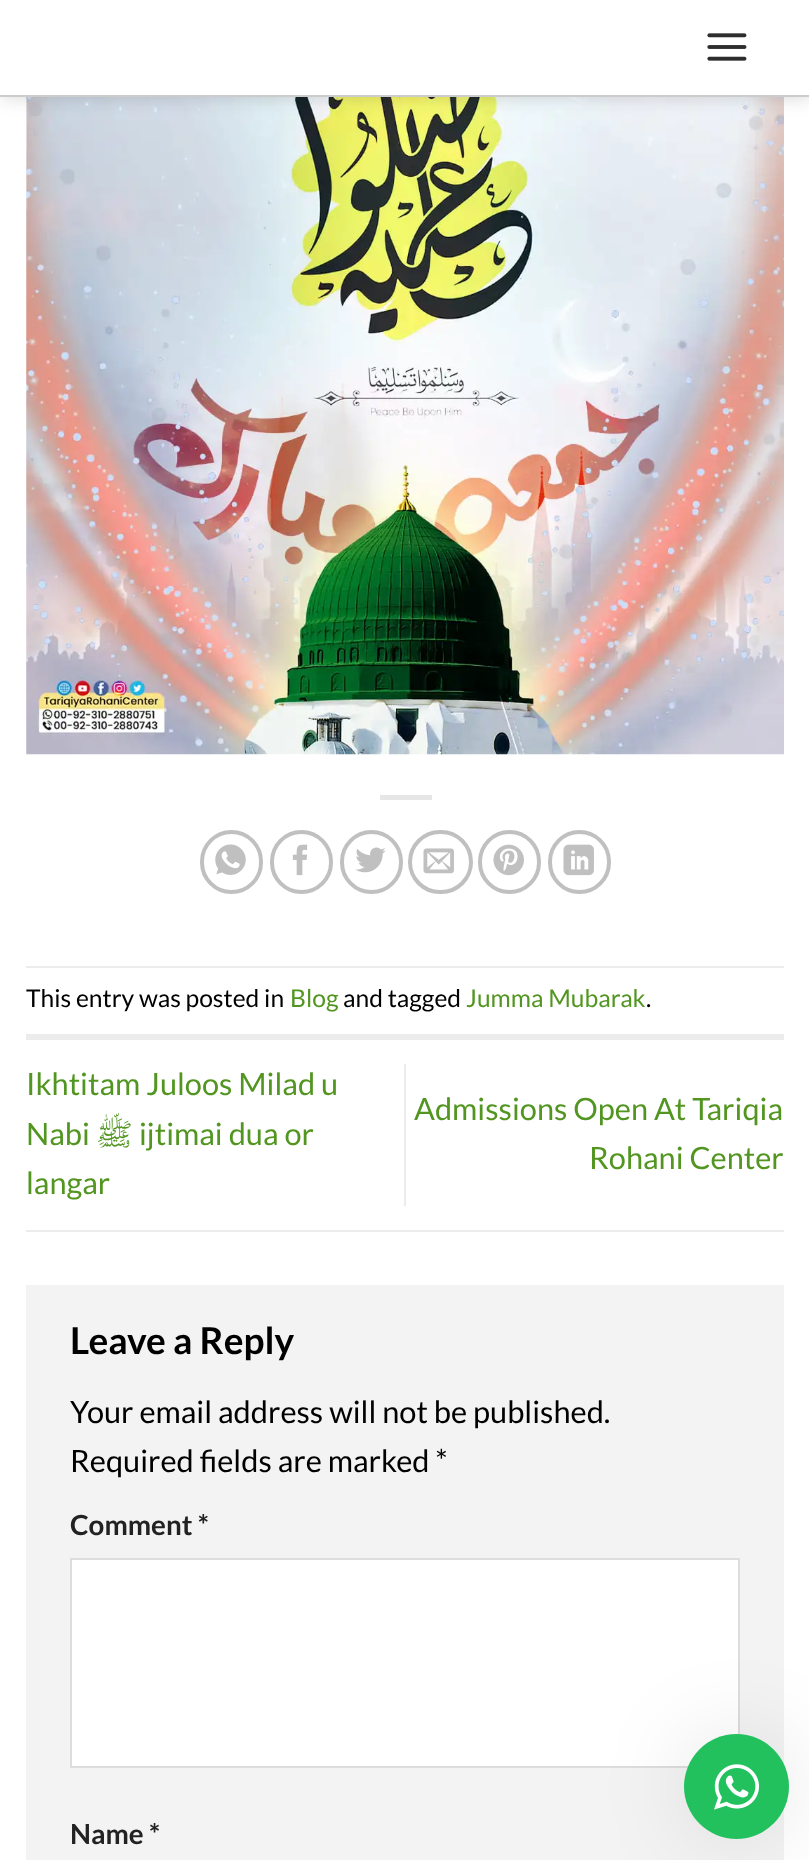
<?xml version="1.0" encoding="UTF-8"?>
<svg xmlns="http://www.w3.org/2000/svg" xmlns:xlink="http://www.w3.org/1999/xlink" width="809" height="1860">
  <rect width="100%" height="100%" fill="#ffffff" />
  <image x="26" y="97" width="758" height="658" xlink:href="image2.png" />
  <rect x="2" y="2" width="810" height="96" fill="#000000" fill-opacity="0.15" filter="blur(9px)" />
  <rect width="809" height="95" fill="#ffffff" />
  <rect y="95" width="809" height="2" fill="#cccccc" />
  <image x="707" y="33" width="40" height="28" xlink:href="image1.png" />
  <rect x="380" y="795" width="52" height="5" fill="#e6e6e6" />
  <rect x="202" y="832" width="59" height="60" rx="29.5" fill="none" stroke="#c0c0c0" stroke-width="4" />
  <image x="215" y="844" width="31" height="31" xlink:href="image3.png" />
  <rect x="272" y="832" width="59" height="60" rx="29.5" fill="none" stroke="#c0c0c0" stroke-width="4" />
  <image x="292" y="844" width="16" height="32" xlink:href="image4.png" />
  <rect x="342" y="832" width="59" height="60" rx="29.5" fill="none" stroke="#c0c0c0" stroke-width="4" />
  <image x="355" y="847" width="31" height="26" xlink:href="image5.png" />
  <rect x="410" y="832" width="61" height="60" rx="30" fill="none" stroke="#c0c0c0" stroke-width="4" />
  <image x="423" y="848" width="31" height="26" xlink:href="image6.png" />
  <rect x="480" y="832" width="59" height="60" rx="29.5" fill="none" stroke="#c0c0c0" stroke-width="4" />
  <image x="493" y="844" width="31" height="32" xlink:href="image7.png" />
  <rect x="550" y="832" width="59" height="60" rx="29.5" fill="none" stroke="#c0c0c0" stroke-width="4" />
  <image x="563" y="844" width="31" height="32" xlink:href="image8.png" />
  <rect x="26" y="966" width="758" height="2" fill="#ececec" />
  <rect x="26" y="1034" width="758" height="6" fill="#ececec" />
  <rect x="26" y="1230" width="758" height="2" fill="#ececec" />
  <rect x="404" y="1064" width="2" height="142" fill="#ececec" />
  <rect x="26" y="1285" width="758" height="575" fill="#f3f3f3" />
  <rect x="71" y="1559" width="668" height="208" fill="#ffffff" stroke="#dddddd" stroke-width="2" />
  <rect x="684" y="1734" width="105" height="105" rx="52.5" fill="#000000" fill-opacity="0.1" filter="blur(44px)" />
  <circle cx="736.5" cy="1786.5" r="52.5" fill="#22c15e" />
  <image x="714" y="1764" width="45" height="46" xlink:href="image9.png" />
  <text x="26" y="1007" style="font-family: Lato; font-size: 24.6px; fill: #000000">This entry was posted in</text>
  <text x="290" y="1007" style="font-family: Lato; font-size: 24.6px; fill: #529621">Blog</text>
  <text x="343" y="1007" style="font-family: Lato; font-size: 24.6px; fill: #000000">and tagged</text>
  <text x="466" y="1007" style="font-family: Lato; font-size: 24.6px; fill: #529621">Jumma Mubarak</text>
  <text x="646" y="1007" style="font-family: Lato; font-size: 24.6px; fill: #000000">.</text>
  <text x="26" y="1095" style="font-family: Lato; font-size: 30.75px; fill: #529621">Ikhtitam Juloos Milad u</text>
  <text x="26" y="1145" style="font-family: Lato; font-size: 30.75px; fill: #529621">Nabi</text>
  <text x="133" y="1145" style="font-family: Lateef; font-size: 30.75px; direction: rtl; fill: #529621">ﷺ</text>
  <text x="139" y="1145" style="font-family: Lato; font-size: 30.75px; fill: #529621">ijtimai dua or</text>
  <text x="26" y="1194" style="font-family: Lato; font-size: 30.75px; fill: #529621">langar</text>
  <text x="414" y="1120" style="font-family: Lato; font-size: 30.75px; fill: #529621">Admissions Open At Tariqia</text>
  <text x="589" y="1169" style="font-family: Lato; font-size: 30.75px; fill: #529621">Rohani Center</text>
  <text x="70" y="1354" style="font-family: Lato; font-size: 37px; font-weight: bold; fill: #000000">Leave a Reply</text>
  <text x="70" y="1423" style="font-family: Lato; font-size: 30.75px; fill: #000000">Your email address will not be published.</text>
  <text x="70" y="1472" style="font-family: Lato; font-size: 30.75px; fill: #000000">Required fields are marked *</text>
  <text x="70" y="1535" style="font-family: Lato; font-size: 27.75px; font-weight: bold; fill: #222222">Comment *</text>
  <text x="70" y="1844" style="font-family: Lato; font-size: 27.75px; font-weight: bold; fill: #222222">Name *</text>
</svg>
